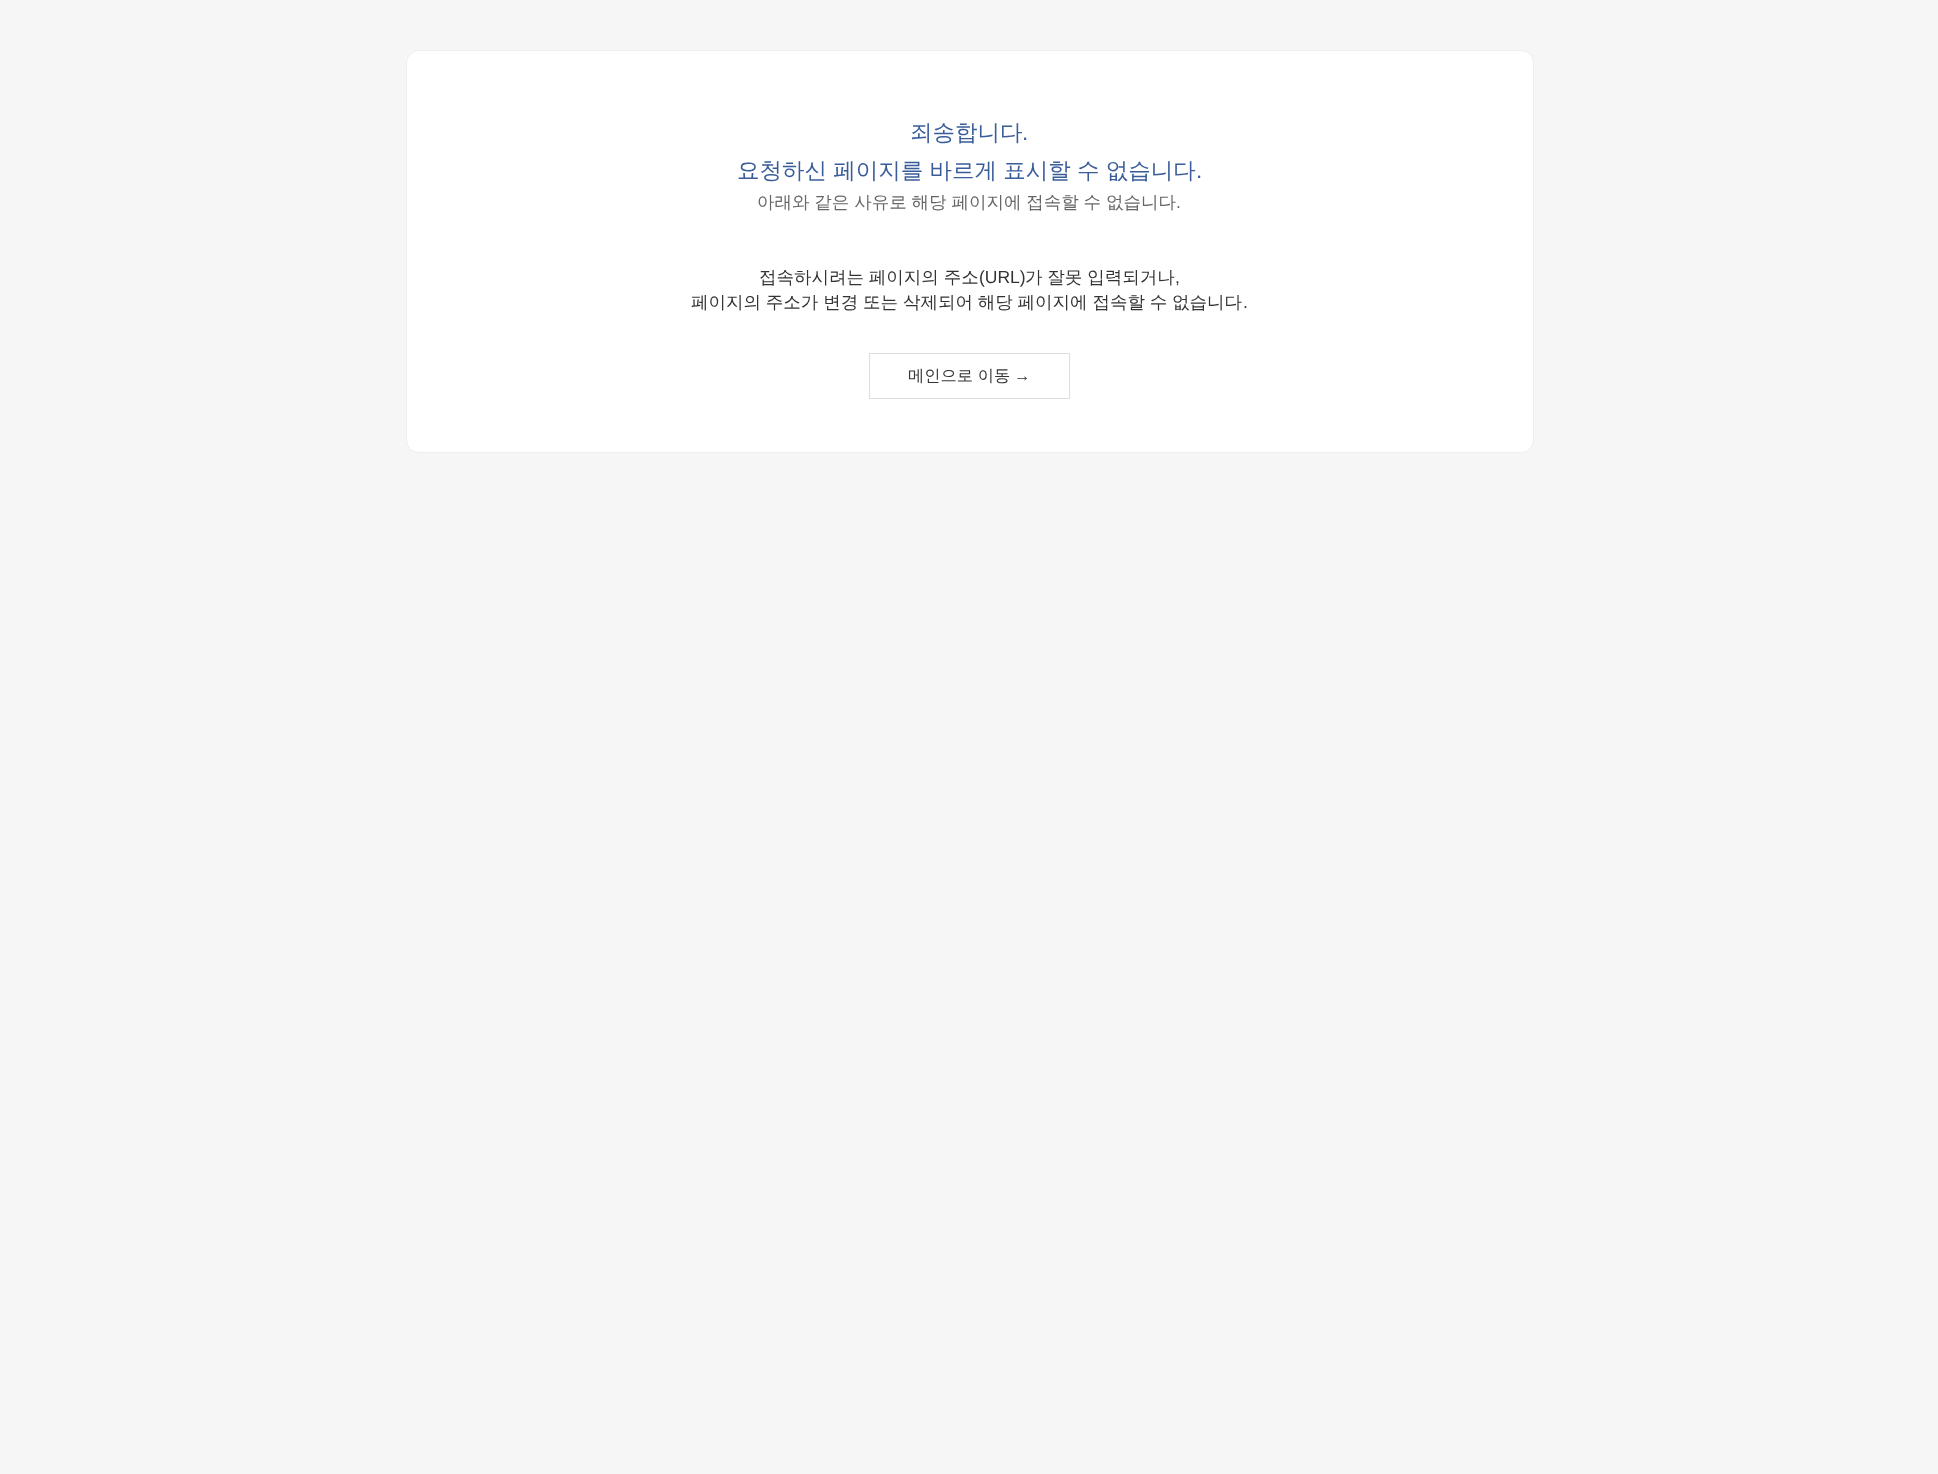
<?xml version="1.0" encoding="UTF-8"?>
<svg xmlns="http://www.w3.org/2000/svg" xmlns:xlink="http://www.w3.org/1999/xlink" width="1938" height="1474">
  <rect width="100%" height="100%" fill="#f6f6f6" />
  <rect x="406.5" y="50.5" width="1127" height="402" rx="12.5" fill="#ffffff" stroke="#eeeeee" />
  <rect x="869.5" y="353.5" width="200" height="45" fill="none" stroke="#dddddd" />
  <text x="910" y="140" style="font-family: WenQuanYi Zen Hei; font-size: 22.5px; font-weight: 500; fill: #3a5d9a">죄송합니다</text>
  <text x="1022" y="140" style="font-family: Liberation Sans; font-size: 22.5px; fill: #3a5d9a">.</text>
  <text x="737" y="178" word-spacing="-0.5" style="font-family: WenQuanYi Zen Hei; font-size: 22.5px; font-weight: 500; fill: #3a5d9a">요청하신 페이지를 바르게 표시할 수 없습니다</text>
  <text x="1196" y="178" style="font-family: Liberation Sans; font-size: 22.5px; fill: #3a5d9a">.</text>
  <text x="757" y="208" word-spacing="-0.4" style="font-family: WenQuanYi Zen Hei; font-size: 17.5px; font-weight: 500; fill: #666666">아래와 같은 사유로 해당 페이지에 접속할 수 없습니다</text>
  <text x="1176" y="208" style="font-family: Liberation Sans; font-size: 17.5px; fill: #666666">.</text>
  <text x="759" y="283" word-spacing="-0.4" style="font-family: WenQuanYi Zen Hei; font-size: 17.5px; font-weight: 500; fill: #333333">접속하시려는 페이지의 주소</text>
  <text x="979" y="283" style="font-family: Liberation Sans; font-size: 17.5px; fill: #333333">(URL)</text>
  <text x="1025" y="283" word-spacing="-0.4" style="font-family: WenQuanYi Zen Hei; font-size: 17.5px; font-weight: 500; fill: #333333">가 잘못 입력되거나</text>
  <text x="1175" y="283" style="font-family: Liberation Sans; font-size: 17.5px; fill: #333333">,</text>
  <text x="691" y="308" word-spacing="-0.4" style="font-family: WenQuanYi Zen Hei; font-size: 17.5px; font-weight: 500; fill: #333333">페이지의 주소가 변경 또는 삭제되어 해당 페이지에 접속할 수 없습니다</text>
  <text x="1243" y="308" style="font-family: Liberation Sans; font-size: 17.5px; fill: #333333">.</text>
  <text x="908" y="381" style="font-family: WenQuanYi Zen Hei; font-size: 16.25px; font-weight: 500; fill: #333333">메인으로 이동</text>
  <text x="1014" y="381" style="font-family: Liberation Sans; font-size: 16.25px; fill: #333333">→</text>
</svg>
